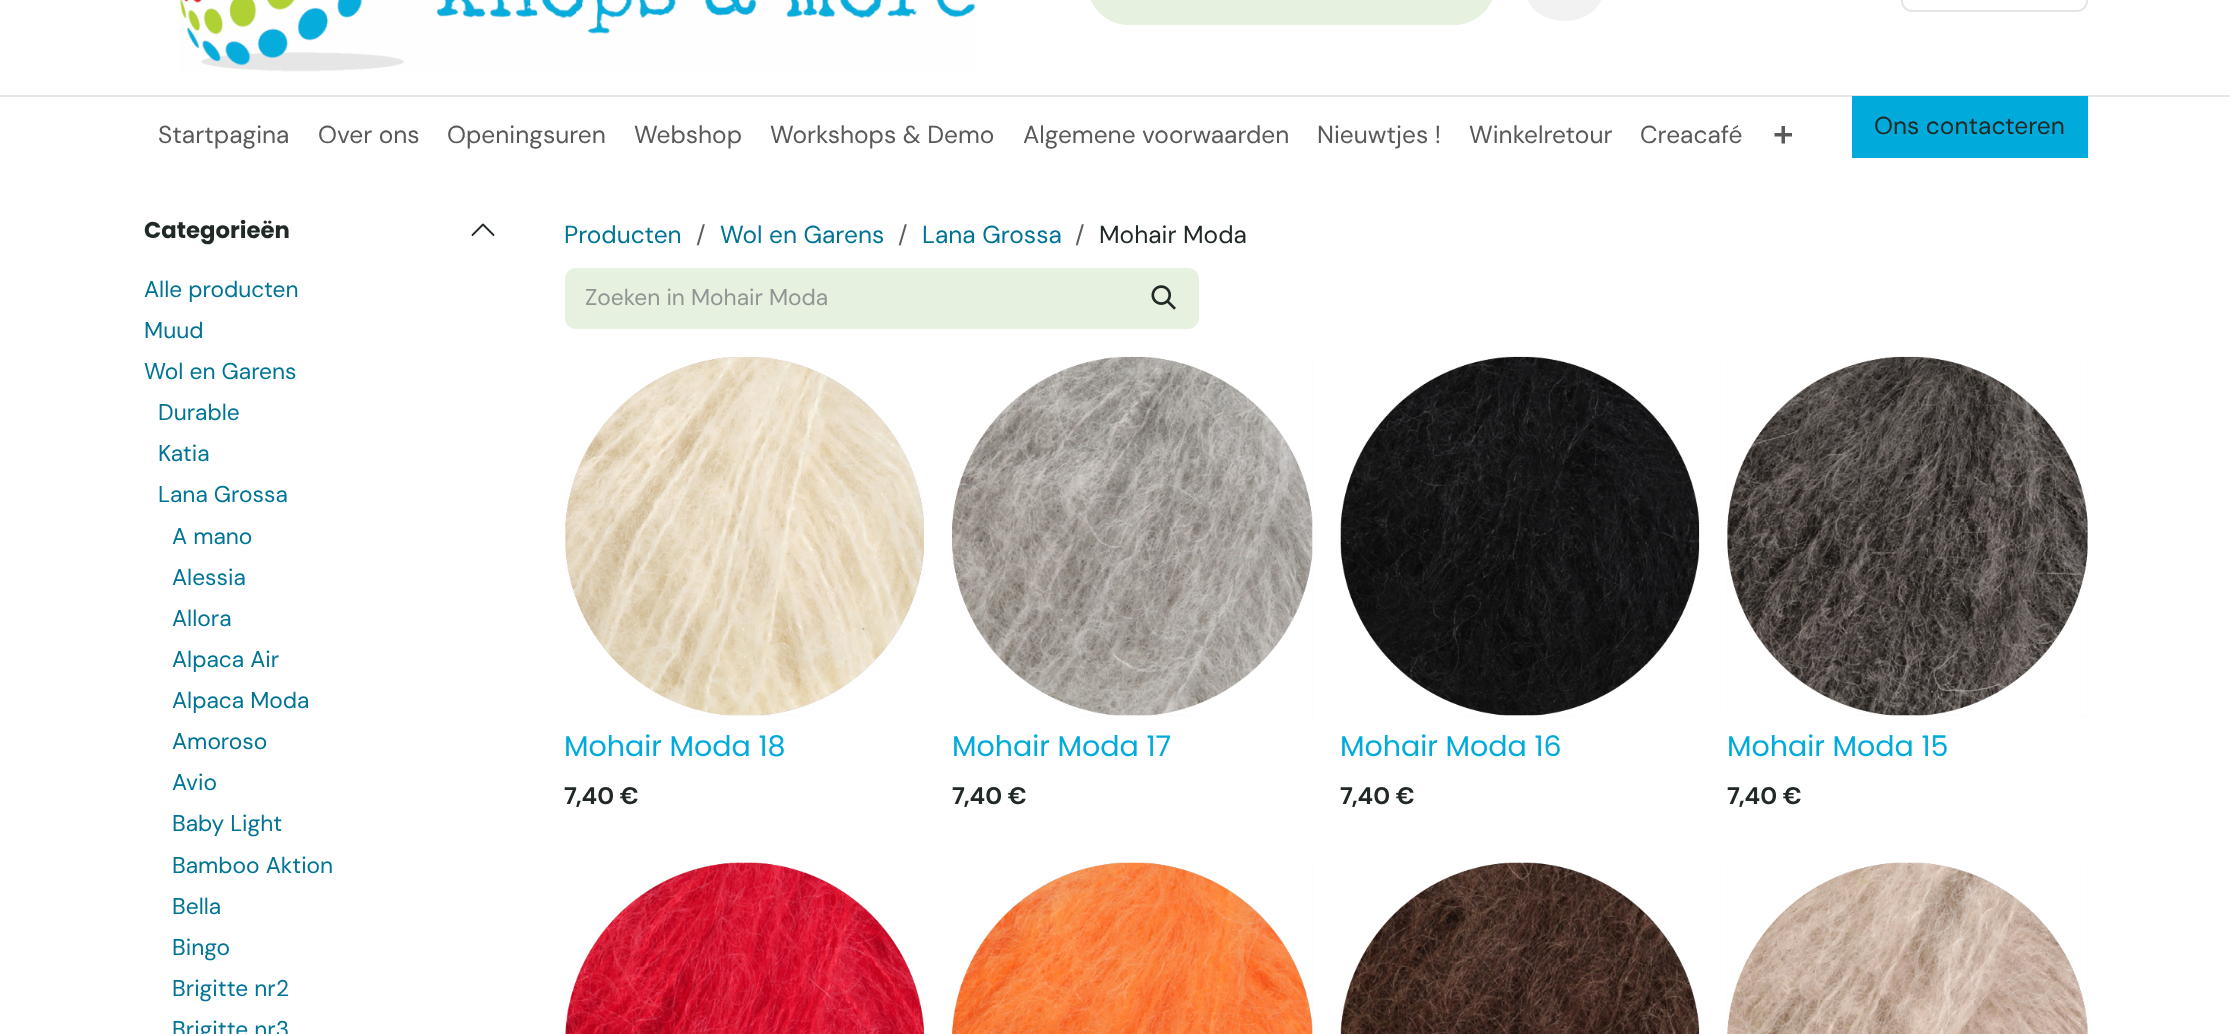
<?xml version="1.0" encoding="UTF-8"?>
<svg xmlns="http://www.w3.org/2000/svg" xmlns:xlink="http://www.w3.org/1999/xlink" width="2230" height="1034">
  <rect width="100%" height="100%" fill="#ffffff" />
  <path d="M 1129 -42 h 285 v 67 h -285 c -23 0 -42 -19 -42 -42 v 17 c 0 -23 19 -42 42 -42 z" fill="#e6f1df" />
  <path d="M 1412 -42 h 42 c 23 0 42 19 42 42 v -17 c 0 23 -19 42 -42 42 h -42 z" fill="#e6f1df" />
  <rect x="1526" y="-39" width="77" height="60" rx="38.5" fill="#f2f2f2" />
  <rect x="1902" y="-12" width="185" height="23" rx="10" fill="none" stroke="#e6e6e6" stroke-width="2" />
  <image x="179" y="0" width="796" height="72" xlink:href="image1.png" />
  <rect y="95" width="2230" height="2" fill="#e6e6e6" />
  <image x="1774" y="126" width="18" height="18" xlink:href="image2.png" />
  <rect x="1852" y="96" width="236" height="62" fill="#00abdc" />
  <path d="M 493.5 235 l -10.5 -10.5 l -10.5 10.5" fill="none" stroke="#212926" stroke-width="1.8" stroke-linecap="round" stroke-linejoin="round" />
  <path d="M 576 268 h 555 v 61 h -555 c -6 0 -11 -5 -11 -11 v -39 c 0 -6 5 -11 11 -11 z" fill="#e6f1df" />
  <path d="M 1130 269 h 58 c 5.5 0 10 4.5 10 10 v 39 c 0 5.5 -4.5 10 -10 10 h -58 z" fill="#e6f1df" stroke="#e6f1df" stroke-width="2" />
  <image x="1151" y="285" width="25" height="25" xlink:href="image3.png" />
  <rect x="565" y="357" width="359" height="359" fill="#f8faf9" />
  <image x="565" y="356" width="359" height="360" xlink:href="image4.png" />
  <rect x="952" y="357" width="361" height="359" fill="#f8faf9" />
  <image x="952" y="356" width="361" height="360" xlink:href="image5.png" />
  <rect x="1341" y="715" width="358" height="1" fill="#f8faf9" />
  <image x="1340" y="356" width="360" height="360" xlink:href="image6.png" />
  <rect x="1727" y="357" width="361" height="359" fill="#f8faf9" />
  <image x="1727" y="356" width="361" height="360" xlink:href="image7.png" />
  <rect x="565" y="863" width="1" height="171" fill="#f8faf9" />
  <image x="565" y="862" width="359" height="172" xlink:href="image8.png" />
  <rect x="1312" y="863" width="1" height="171" fill="#f8faf9" />
  <image x="952" y="862" width="361" height="172" xlink:href="image9.png" />
  <image x="1340" y="862" width="360" height="172" xlink:href="image10.png" />
  <rect x="1727" y="863" width="361" height="171" fill="#f8faf9" />
  <image x="1727" y="862" width="361" height="172" xlink:href="image11.png" />
  <text x="158" y="143" style="font-family: DM Sans; font-size: 24.5px; fill: #595959">Startpagina</text>
  <text x="318" y="143" style="font-family: DM Sans; font-size: 24.5px; fill: #595959">Over ons</text>
  <text x="447" y="143" style="font-family: DM Sans; font-size: 24.5px; fill: #595959">Openingsuren</text>
  <text x="634" y="143" style="font-family: DM Sans; font-size: 24.5px; fill: #595959">Webshop</text>
  <text x="770" y="143" style="font-family: DM Sans; font-size: 24.5px; fill: #595959">Workshops &amp; Demo</text>
  <text x="1023" y="143" style="font-family: DM Sans; font-size: 24.5px; fill: #595959">Algemene voorwaarden</text>
  <text x="1317" y="143" style="font-family: DM Sans; font-size: 24.5px; fill: #595959">Nieuwtjes !</text>
  <text x="1469" y="143" style="font-family: DM Sans; font-size: 24.5px; fill: #595959">Winkelretour</text>
  <text x="1640" y="143" style="font-family: DM Sans; font-size: 24.5px; fill: #595959">Creacafé</text>
  <text x="1874" y="134" style="font-family: DM Sans; font-size: 24.5px; fill: #212926">Ons contacteren</text>
  <text x="144" y="238" style="font-family: Poppins; font-size: 22.75px; font-weight: bold; fill: #212926">Categorieën</text>
  <text x="144" y="297" style="font-family: DM Sans; font-size: 22.75px; fill: #007495">Alle producten</text>
  <text x="144" y="338" style="font-family: DM Sans; font-size: 22.75px; fill: #007495">Muud</text>
  <text x="144" y="379" style="font-family: DM Sans; font-size: 22.75px; fill: #007495">Wol en Garens</text>
  <text x="158" y="420" style="font-family: DM Sans; font-size: 22.75px; fill: #007495">Durable</text>
  <text x="158" y="461" style="font-family: DM Sans; font-size: 22.75px; fill: #007495">Katia</text>
  <text x="158" y="502" style="font-family: DM Sans; font-size: 22.75px; fill: #007495">Lana Grossa</text>
  <text x="172" y="544" style="font-family: DM Sans; font-size: 22.75px; fill: #007495">A mano</text>
  <text x="172" y="585" style="font-family: DM Sans; font-size: 22.75px; fill: #007495">Alessia</text>
  <text x="172" y="626" style="font-family: DM Sans; font-size: 22.75px; fill: #007495">Allora</text>
  <text x="172" y="667" style="font-family: DM Sans; font-size: 22.75px; fill: #007495">Alpaca Air</text>
  <text x="172" y="708" style="font-family: DM Sans; font-size: 22.75px; fill: #007495">Alpaca Moda</text>
  <text x="172" y="749" style="font-family: DM Sans; font-size: 22.75px; fill: #007495">Amoroso</text>
  <text x="172" y="790" style="font-family: DM Sans; font-size: 22.75px; fill: #007495">Avio</text>
  <text x="172" y="831" style="font-family: DM Sans; font-size: 22.75px; fill: #007495">Baby Light</text>
  <text x="172" y="873" style="font-family: DM Sans; font-size: 22.75px; fill: #007495">Bamboo Aktion</text>
  <text x="172" y="914" style="font-family: DM Sans; font-size: 22.75px; fill: #007495">Bella</text>
  <text x="172" y="955" style="font-family: DM Sans; font-size: 22.75px; fill: #007495">Bingo</text>
  <text x="172" y="996" style="font-family: DM Sans; font-size: 22.75px; fill: #007495">Brigitte nr2</text>
  <text x="172" y="1037" style="font-family: DM Sans; font-size: 22.75px; fill: #007495">Brigitte nr3</text>
  <text x="564" y="243" style="font-family: DM Sans; font-size: 24.5px; fill: #007495">Producten</text>
  <text x="696" y="243" style="font-family: DM Sans; font-size: 24.5px; fill: #595f5c">/</text>
  <text x="720" y="243" style="font-family: DM Sans; font-size: 24.5px; fill: #007495">Wol en Garens</text>
  <text x="898" y="243" style="font-family: DM Sans; font-size: 24.5px; fill: #595f5c">/</text>
  <text x="922" y="243" style="font-family: DM Sans; font-size: 24.5px; fill: #007495">Lana Grossa</text>
  <text x="1075" y="243" style="font-family: DM Sans; font-size: 24.5px; fill: #595f5c">/</text>
  <text x="1099" y="243" style="font-family: DM Sans; font-size: 24.5px; fill: #212926">Mohair Moda</text>
  <text x="585" y="305" style="font-family: DM Sans; font-size: 22.75px; fill: #909493">Zoeken in Mohair Moda</text>
  <text x="564" y="756" style="font-family: Poppins; font-size: 28.5px; fill: #00abdc">Mohair Moda 18</text>
  <text x="564" y="804" style="font-family: DM Sans; font-size: 24px; font-weight: bold; fill: #212926">7,40 €</text>
  <text x="952" y="756" style="font-family: Poppins; font-size: 28.5px; fill: #00abdc">Mohair Moda 17</text>
  <text x="952" y="804" style="font-family: DM Sans; font-size: 24px; font-weight: bold; fill: #212926">7,40 €</text>
  <text x="1340" y="756" style="font-family: Poppins; font-size: 28.5px; fill: #00abdc">Mohair Moda 16</text>
  <text x="1340" y="804" style="font-family: DM Sans; font-size: 24px; font-weight: bold; fill: #212926">7,40 €</text>
  <text x="1727" y="756" style="font-family: Poppins; font-size: 28.5px; fill: #00abdc">Mohair Moda 15</text>
  <text x="1727" y="804" style="font-family: DM Sans; font-size: 24px; font-weight: bold; fill: #212926">7,40 €</text>
</svg>
